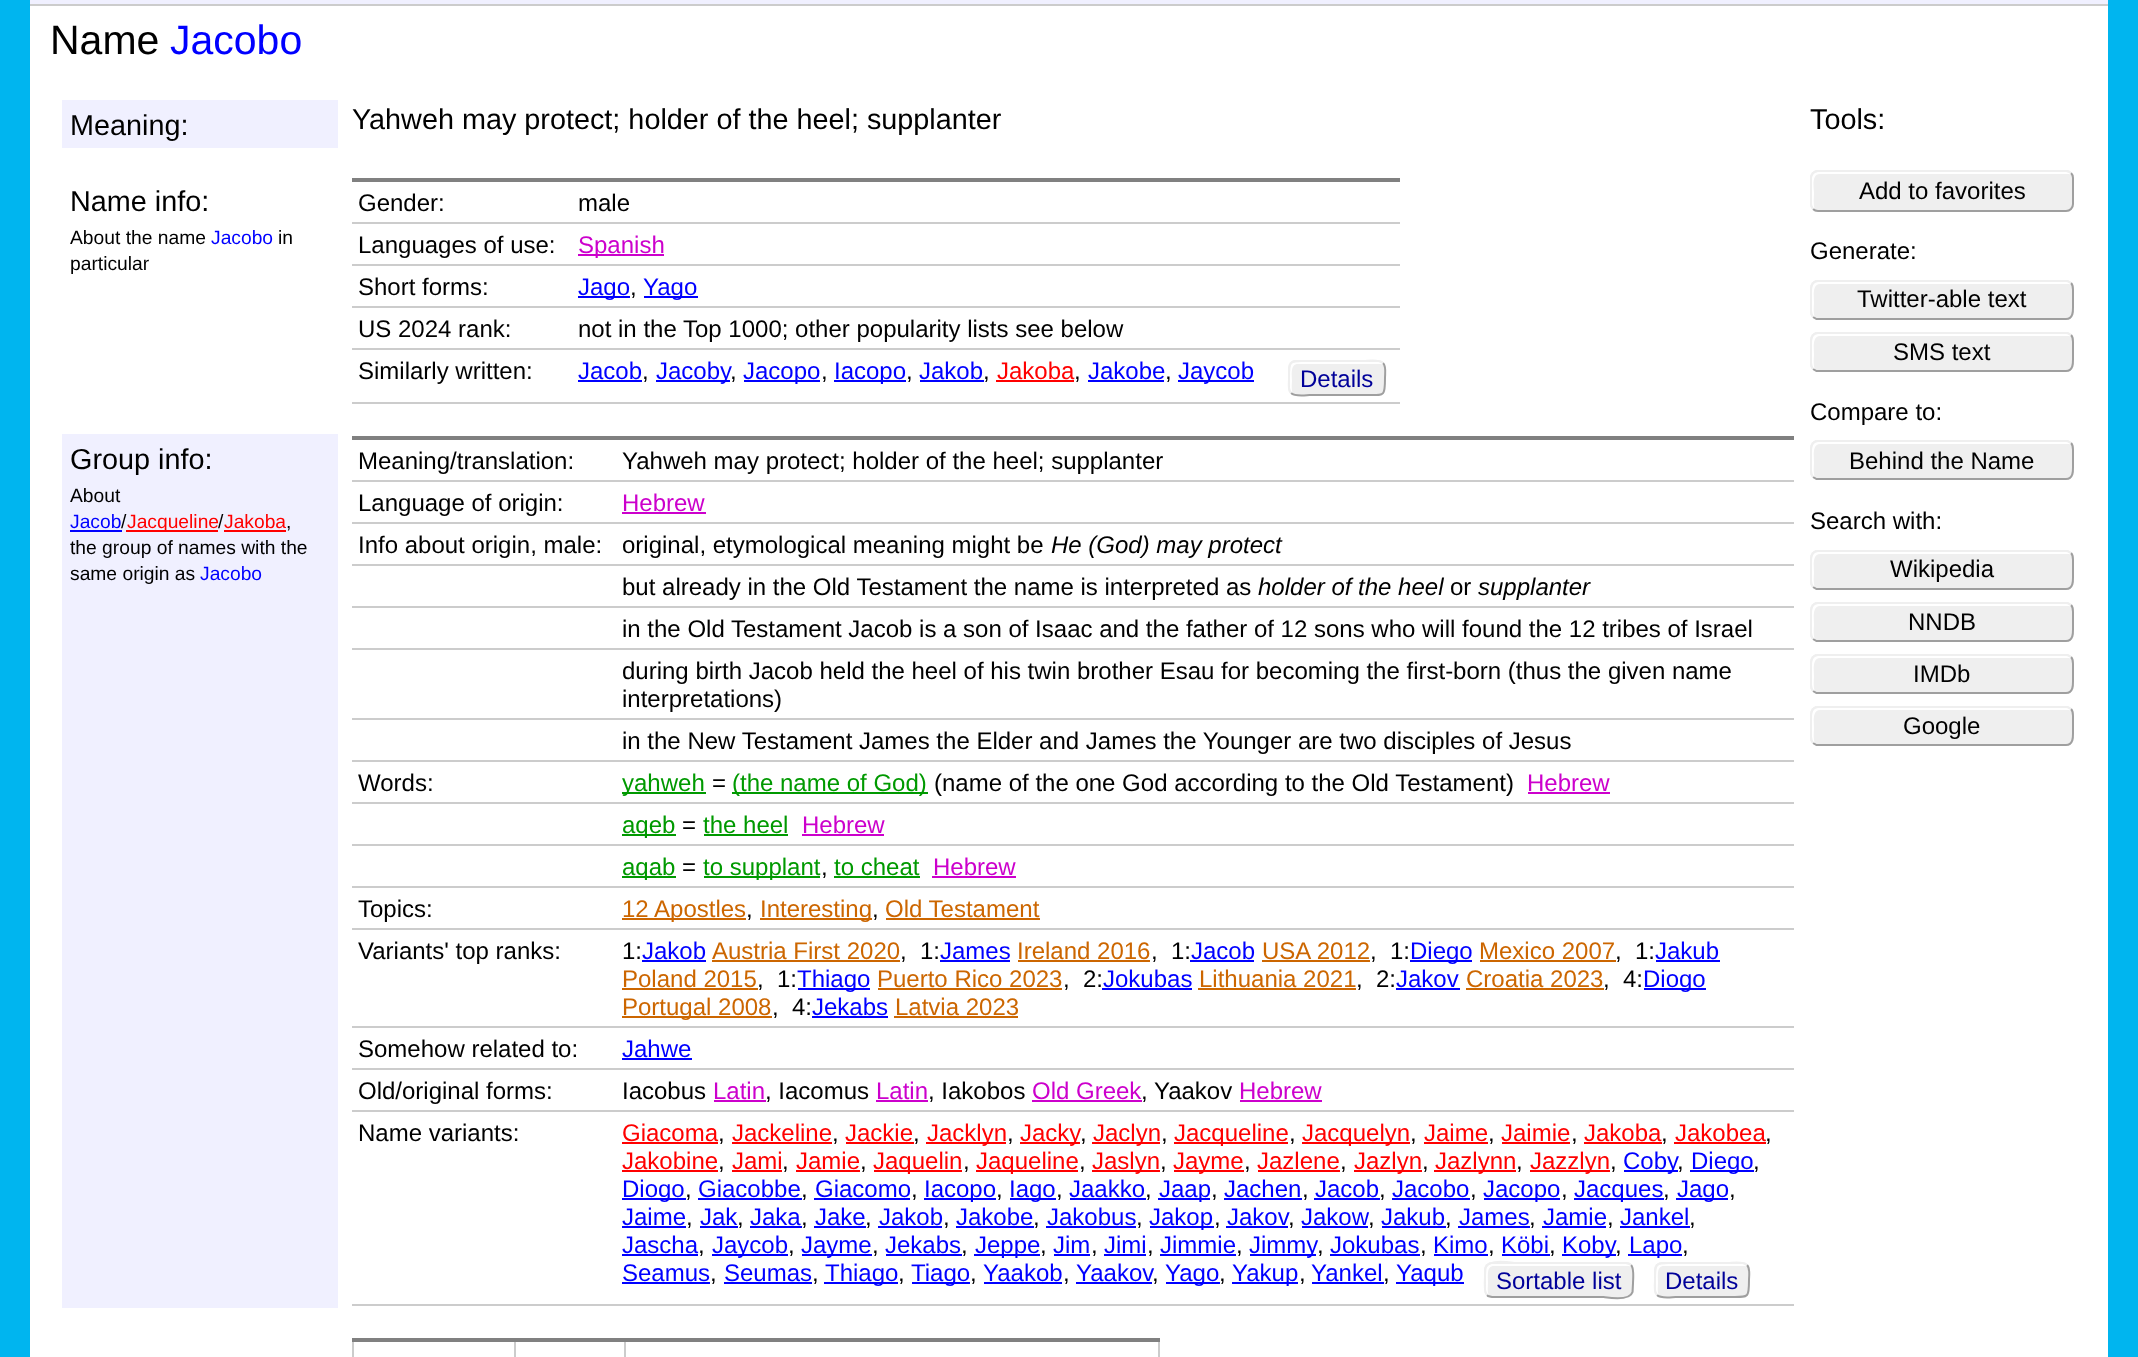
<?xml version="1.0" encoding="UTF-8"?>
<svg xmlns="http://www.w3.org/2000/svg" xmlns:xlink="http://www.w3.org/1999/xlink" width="2138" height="1357">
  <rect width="100%" height="100%" fill="#00b5ef" />
  <rect x="30" y="6" width="2078" height="1351" fill="#ffffff" />
  <rect x="30" width="2078" height="4" fill="#f0f0ff" />
  <rect x="30" y="4" width="2078" height="2" fill="#cccccc" />
  <rect x="62" y="100" width="276" height="48" fill="#f0f0ff" />
  <rect x="1810" y="170" width="264" height="42" rx="8" fill="#efefef" />
  <path d="M 1820 174 h 248 c 1 0 2 0 3 1 c -1 -2 -3 -3 -5 -3 h -248 c -3 0 -6 3 -6 6 v 26 c 0 2 1 4 3 5 c -2 -3 -1 -12 -1 -16 c 0 -5 -3 -19 6 -19 z" fill="#ffffff" />
  <path d="M 2071 173 c 1.5 1.5 2 3 2 5 v 26 c 0 2 -0.5 3.5 -2 5 c -1.5 1.5 -3 2 -5 2 h -248 c -2 0 -3.5 -0.5 -5 -2" fill="none" stroke="#9f9f9f" stroke-width="2" />
  <path d="M 1813 209 c -1.5 -1.5 -2 -3 -2 -5 v -26 c 0 -2 0.5 -3.5 2 -5 c 1.5 -1.5 3 -2 5 -2 h 248 c 2 0 3.5 0.5 5 2" fill="none" stroke="#efefef" stroke-width="2" />
  <rect x="1810" y="280" width="264" height="40" rx="8" fill="#efefef" />
  <path d="M 1820 284 h 248 c 1 0 2 0 3 1 c -1 -2 -3 -3 -5 -3 h -248 c -3 0 -6 3 -6 6 v 24 c 0 2 1 4 3 5 c -2 -3 -1 -11 -1 -15 c 0 -5 -2 -18 6 -18 z" fill="#ffffff" />
  <path d="M 2071 283 c 2.5 2.5 2 5.5 2 9 v 12 c 0 5.5 1 15 -7 15 h -249.5 l -3.5 -2" fill="none" stroke="#9f9f9f" stroke-width="2" />
  <path d="M 1813 317 c -2.5 -2.5 -2 -5.5 -2 -9 v -12 c 0 -5.5 -1 -15 7 -15 h 249.5 l 3.5 2" fill="none" stroke="#efefef" stroke-width="2" />
  <rect x="1810" y="332" width="264" height="40" rx="8" fill="#efefef" />
  <path d="M 1820 336 h 248 c 1 0 2 0 3 1 c -1 -2 -3 -3 -5 -3 h -248 c -3 0 -6 3 -6 6 v 24 c 0 2 1 4 3 5 c -2 -3 -1 -11 -1 -15 c 0 -5 -2 -18 6 -18 z" fill="#ffffff" />
  <path d="M 2071 335 c 2.5 2.5 2 5.5 2 9 v 12 c 0 5.5 1 15 -7 15 h -249.5 l -3.5 -2" fill="none" stroke="#9f9f9f" stroke-width="2" />
  <path d="M 1813 369 c -2.5 -2.5 -2 -5.5 -2 -9 v -12 c 0 -5.5 -1 -15 7 -15 h 249.5 l 3.5 2" fill="none" stroke="#efefef" stroke-width="2" />
  <rect x="1810" y="440" width="264" height="40" rx="8" fill="#efefef" />
  <path d="M 1820 444 h 248 c 1 0 2 0 3 1 c -1 -2 -3 -3 -5 -3 h -248 c -3 0 -6 3 -6 6 v 24 c 0 2 1 4 3 5 c -2 -3 -1 -11 -1 -15 c 0 -5 -2 -18 6 -18 z" fill="#ffffff" />
  <path d="M 2071 443 c 2.5 2.5 2 5.5 2 9 v 12 c 0 5.5 1 15 -7 15 h -249.5 l -3.5 -2" fill="none" stroke="#9f9f9f" stroke-width="2" />
  <path d="M 1813 477 c -2.5 -2.5 -2 -5.5 -2 -9 v -12 c 0 -5.5 -1 -15 7 -15 h 249.5 l 3.5 2" fill="none" stroke="#efefef" stroke-width="2" />
  <rect x="1810" y="550" width="264" height="40" rx="8" fill="#efefef" />
  <path d="M 1820 554 h 248 c 1 0 2 0 3 1 c -1 -2 -3 -3 -5 -3 h -248 c -3 0 -6 3 -6 6 v 24 c 0 2 1 4 3 5 c -2 -3 -1 -11 -1 -15 c 0 -5 -2 -18 6 -18 z" fill="#ffffff" />
  <path d="M 2071 553 c 2.5 2.5 2 5.5 2 9 v 12 c 0 5.5 1 15 -7 15 h -249.5 l -3.5 -2" fill="none" stroke="#9f9f9f" stroke-width="2" />
  <path d="M 1813 587 c -2.5 -2.5 -2 -5.5 -2 -9 v -12 c 0 -5.5 -1 -15 7 -15 h 249.5 l 3.5 2" fill="none" stroke="#efefef" stroke-width="2" />
  <rect x="1810" y="602" width="264" height="40" rx="8" fill="#efefef" />
  <path d="M 1820 606 h 248 c 1 0 2 0 3 1 c -1 -2 -3 -3 -5 -3 h -248 c -3 0 -6 3 -6 6 v 24 c 0 2 1 4 3 5 c -2 -3 -1 -11 -1 -15 c 0 -5 -2 -18 6 -18 z" fill="#ffffff" />
  <path d="M 2071 605 c 2.5 2.5 2 5.5 2 9 v 12 c 0 5.5 1 15 -7 15 h -249.5 l -3.5 -2" fill="none" stroke="#9f9f9f" stroke-width="2" />
  <path d="M 1813 639 c -2.5 -2.5 -2 -5.5 -2 -9 v -12 c 0 -5.5 -1 -15 7 -15 h 249.5 l 3.5 2" fill="none" stroke="#efefef" stroke-width="2" />
  <rect x="1810" y="654" width="264" height="40" rx="8" fill="#efefef" />
  <path d="M 1820 658 h 248 c 1 0 2 0 3 1 c -1 -2 -3 -3 -5 -3 h -248 c -3 0 -6 3 -6 6 v 24 c 0 2 1 4 3 5 c -2 -3 -1 -11 -1 -15 c 0 -5 -2 -18 6 -18 z" fill="#ffffff" />
  <path d="M 2071 657 c 2.5 2.5 2 5.5 2 9 v 12 c 0 5.5 1 15 -7 15 h -249.5 l -3.5 -2" fill="none" stroke="#9f9f9f" stroke-width="2" />
  <path d="M 1813 691 c -2.5 -2.5 -2 -5.5 -2 -9 v -12 c 0 -5.5 -1 -15 7 -15 h 249.5 l 3.5 2" fill="none" stroke="#efefef" stroke-width="2" />
  <rect x="1810" y="706" width="264" height="40" rx="8" fill="#efefef" />
  <path d="M 1820 710 h 248 c 1 0 2 0 3 1 c -1 -2 -3 -3 -5 -3 h -248 c -3 0 -6 3 -6 6 v 24 c 0 2 1 4 3 5 c -2 -3 -1 -11 -1 -15 c 0 -5 -2 -18 6 -18 z" fill="#ffffff" />
  <path d="M 2071 709 c 2.5 2.5 2 5.5 2 9 v 12 c 0 5.5 1 15 -7 15 h -249.5 l -3.5 -2" fill="none" stroke="#9f9f9f" stroke-width="2" />
  <path d="M 1813 743 c -2.5 -2.5 -2 -5.5 -2 -9 v -12 c 0 -5.5 -1 -15 7 -15 h 249.5 l 3.5 2" fill="none" stroke="#efefef" stroke-width="2" />
  <rect x="352" y="178" width="1048" height="4" fill="#808080" />
  <rect x="352" y="222" width="1048" height="2" fill="#cccccc" />
  <rect x="578" y="254" width="86" height="2" fill="#cc00cc" />
  <rect x="352" y="264" width="1048" height="2" fill="#cccccc" />
  <rect x="578" y="296" width="52" height="2" fill="#0000ff" />
  <rect x="644" y="296" width="54" height="2" fill="#0000ff" />
  <rect x="352" y="306" width="1048" height="2" fill="#cccccc" />
  <rect x="352" y="348" width="1048" height="2" fill="#cccccc" />
  <rect x="352" y="402" width="1048" height="2" fill="#cccccc" />
  <rect x="578" y="380" width="64" height="2" fill="#0000ff" />
  <rect x="656" y="380" width="74" height="2" fill="#0000ff" />
  <rect x="744" y="380" width="76" height="2" fill="#0000ff" />
  <rect x="834" y="380" width="72" height="2" fill="#0000ff" />
  <rect x="920" y="380" width="64" height="2" fill="#0000ff" />
  <rect x="996" y="380" width="78" height="2" fill="#ff0000" />
  <rect x="1088" y="380" width="76" height="2" fill="#0000ff" />
  <rect x="1178" y="380" width="76" height="2" fill="#0000ff" />
  <rect x="1288" y="360" width="98" height="36" rx="8" fill="#efefef" />
  <path d="M 1298 364 h 82 c 1 0 2 0 3 1 c -1 -2 -3 -3 -5 -3 h -82 c -3 0 -6 3 -6 6 v 20 c 0 2 1 4 3 5 c -2 -3 -1 -9 -1 -13 c 0 -5 -2 -16 6 -16 z" fill="#ffffff" />
  <path d="M 1383 363 c 3.5 3.5 2 10.5 2 15 c 0 19.5 -0.5 17 -20.5 17 h -55 c -3 0 -14 2 -18.5 -2" fill="none" stroke="#9f9f9f" stroke-width="2" />
  <path d="M 1291 393 c -3.5 -3.5 -2 -10.5 -2 -15 c 0 -19.5 0.5 -17 20.5 -17 h 55 c 3 0 14 -2 18.5 2" fill="none" stroke="#efefef" stroke-width="2" />
  <rect x="62" y="434" width="276" height="874" fill="#f0f0ff" />
  <rect x="70" y="530" width="52" height="2" fill="#0000ff" />
  <rect x="126" y="530" width="92" height="2" fill="#ff0000" />
  <rect x="224" y="530" width="62" height="2" fill="#ff0000" />
  <rect x="352" y="436" width="1442" height="4" fill="#808080" />
  <rect x="352" y="480" width="1442" height="2" fill="#cccccc" />
  <rect x="622" y="512" width="84" height="2" fill="#cc00cc" />
  <rect x="352" y="522" width="1442" height="2" fill="#cccccc" />
  <rect x="352" y="564" width="1442" height="2" fill="#cccccc" />
  <rect x="352" y="606" width="1442" height="2" fill="#cccccc" />
  <rect x="352" y="648" width="1442" height="2" fill="#cccccc" />
  <rect x="352" y="718" width="1442" height="2" fill="#cccccc" />
  <rect x="352" y="760" width="1442" height="2" fill="#cccccc" />
  <rect x="622" y="792" width="84" height="2" fill="#009900" />
  <rect x="732" y="792" width="196" height="2" fill="#009900" />
  <rect x="1528" y="792" width="82" height="2" fill="#cc00cc" />
  <rect x="352" y="802" width="1442" height="2" fill="#cccccc" />
  <rect x="622" y="834" width="54" height="2" fill="#009900" />
  <rect x="704" y="834" width="84" height="2" fill="#009900" />
  <rect x="802" y="834" width="82" height="2" fill="#cc00cc" />
  <rect x="352" y="844" width="1442" height="2" fill="#cccccc" />
  <rect x="622" y="876" width="54" height="2" fill="#009900" />
  <rect x="704" y="876" width="116" height="2" fill="#009900" />
  <rect x="834" y="876" width="86" height="2" fill="#009900" />
  <rect x="932" y="876" width="84" height="2" fill="#cc00cc" />
  <rect x="352" y="886" width="1442" height="2" fill="#cccccc" />
  <rect x="622" y="918" width="124" height="2" fill="#cc6600" />
  <rect x="760" y="918" width="112" height="2" fill="#cc6600" />
  <rect x="886" y="918" width="154" height="2" fill="#cc6600" />
  <rect x="352" y="928" width="1442" height="2" fill="#cccccc" />
  <rect x="642" y="960" width="64" height="2" fill="#0000ff" />
  <rect x="712" y="960" width="188" height="2" fill="#cc6600" />
  <rect x="940" y="960" width="70" height="2" fill="#0000ff" />
  <rect x="1018" y="960" width="132" height="2" fill="#cc6600" />
  <rect x="1190" y="960" width="64" height="2" fill="#0000ff" />
  <rect x="1262" y="960" width="108" height="2" fill="#cc6600" />
  <rect x="1410" y="960" width="62" height="2" fill="#0000ff" />
  <rect x="1480" y="960" width="136" height="2" fill="#cc6600" />
  <rect x="1656" y="960" width="64" height="2" fill="#0000ff" />
  <rect x="622" y="988" width="136" height="2" fill="#cc6600" />
  <rect x="798" y="988" width="72" height="2" fill="#0000ff" />
  <rect x="878" y="988" width="184" height="2" fill="#cc6600" />
  <rect x="1102" y="988" width="90" height="2" fill="#0000ff" />
  <rect x="1198" y="988" width="158" height="2" fill="#cc6600" />
  <rect x="1396" y="988" width="64" height="2" fill="#0000ff" />
  <rect x="1466" y="988" width="138" height="2" fill="#cc6600" />
  <rect x="1644" y="988" width="62" height="2" fill="#0000ff" />
  <rect x="622" y="1016" width="150" height="2" fill="#cc6600" />
  <rect x="812" y="1016" width="76" height="2" fill="#0000ff" />
  <rect x="894" y="1016" width="124" height="2" fill="#cc6600" />
  <rect x="352" y="1026" width="1442" height="2" fill="#cccccc" />
  <rect x="622" y="1058" width="70" height="2" fill="#0000ff" />
  <rect x="352" y="1068" width="1442" height="2" fill="#cccccc" />
  <rect x="714" y="1100" width="52" height="2" fill="#cc00cc" />
  <rect x="876" y="1100" width="52" height="2" fill="#cc00cc" />
  <rect x="1032" y="1100" width="110" height="2" fill="#cc00cc" />
  <rect x="1240" y="1100" width="82" height="2" fill="#cc00cc" />
  <rect x="352" y="1110" width="1442" height="2" fill="#cccccc" />
  <rect x="352" y="1304" width="1442" height="2" fill="#cccccc" />
  <rect x="622" y="1142" width="96" height="2" fill="#ff0000" />
  <rect x="732" y="1142" width="100" height="2" fill="#ff0000" />
  <rect x="846" y="1142" width="68" height="2" fill="#ff0000" />
  <rect x="926" y="1142" width="80" height="2" fill="#ff0000" />
  <rect x="1020" y="1142" width="60" height="2" fill="#ff0000" />
  <rect x="1092" y="1142" width="68" height="2" fill="#ff0000" />
  <rect x="1174" y="1142" width="114" height="2" fill="#ff0000" />
  <rect x="1302" y="1142" width="108" height="2" fill="#ff0000" />
  <rect x="1424" y="1142" width="64" height="2" fill="#ff0000" />
  <rect x="1502" y="1142" width="68" height="2" fill="#ff0000" />
  <rect x="1584" y="1142" width="78" height="2" fill="#ff0000" />
  <rect x="1674" y="1142" width="92" height="2" fill="#ff0000" />
  <rect x="622" y="1170" width="96" height="2" fill="#ff0000" />
  <rect x="732" y="1170" width="50" height="2" fill="#ff0000" />
  <rect x="796" y="1170" width="64" height="2" fill="#ff0000" />
  <rect x="874" y="1170" width="88" height="2" fill="#ff0000" />
  <rect x="976" y="1170" width="102" height="2" fill="#ff0000" />
  <rect x="1092" y="1170" width="68" height="2" fill="#ff0000" />
  <rect x="1174" y="1170" width="70" height="2" fill="#ff0000" />
  <rect x="1258" y="1170" width="82" height="2" fill="#ff0000" />
  <rect x="1354" y="1170" width="68" height="2" fill="#ff0000" />
  <rect x="1434" y="1170" width="82" height="2" fill="#ff0000" />
  <rect x="1530" y="1170" width="80" height="2" fill="#ff0000" />
  <rect x="1624" y="1170" width="54" height="2" fill="#0000ff" />
  <rect x="1690" y="1170" width="64" height="2" fill="#0000ff" />
  <rect x="622" y="1198" width="64" height="2" fill="#0000ff" />
  <rect x="698" y="1198" width="104" height="2" fill="#0000ff" />
  <rect x="814" y="1198" width="96" height="2" fill="#0000ff" />
  <rect x="924" y="1198" width="72" height="2" fill="#0000ff" />
  <rect x="1010" y="1198" width="46" height="2" fill="#0000ff" />
  <rect x="1070" y="1198" width="76" height="2" fill="#0000ff" />
  <rect x="1158" y="1198" width="52" height="2" fill="#0000ff" />
  <rect x="1224" y="1198" width="78" height="2" fill="#0000ff" />
  <rect x="1314" y="1198" width="66" height="2" fill="#0000ff" />
  <rect x="1392" y="1198" width="78" height="2" fill="#0000ff" />
  <rect x="1484" y="1198" width="76" height="2" fill="#0000ff" />
  <rect x="1574" y="1198" width="90" height="2" fill="#0000ff" />
  <rect x="1676" y="1198" width="52" height="2" fill="#0000ff" />
  <rect x="622" y="1226" width="64" height="2" fill="#0000ff" />
  <rect x="700" y="1226" width="38" height="2" fill="#0000ff" />
  <rect x="750" y="1226" width="52" height="2" fill="#0000ff" />
  <rect x="814" y="1226" width="52" height="2" fill="#0000ff" />
  <rect x="878" y="1226" width="64" height="2" fill="#0000ff" />
  <rect x="956" y="1226" width="78" height="2" fill="#0000ff" />
  <rect x="1046" y="1226" width="90" height="2" fill="#0000ff" />
  <rect x="1150" y="1226" width="64" height="2" fill="#0000ff" />
  <rect x="1226" y="1226" width="62" height="2" fill="#0000ff" />
  <rect x="1302" y="1226" width="66" height="2" fill="#0000ff" />
  <rect x="1382" y="1226" width="64" height="2" fill="#0000ff" />
  <rect x="1458" y="1226" width="72" height="2" fill="#0000ff" />
  <rect x="1542" y="1226" width="64" height="2" fill="#0000ff" />
  <rect x="1620" y="1226" width="70" height="2" fill="#0000ff" />
  <rect x="622" y="1254" width="76" height="2" fill="#0000ff" />
  <rect x="712" y="1254" width="76" height="2" fill="#0000ff" />
  <rect x="802" y="1254" width="70" height="2" fill="#0000ff" />
  <rect x="886" y="1254" width="76" height="2" fill="#0000ff" />
  <rect x="974" y="1254" width="66" height="2" fill="#0000ff" />
  <rect x="1054" y="1254" width="36" height="2" fill="#0000ff" />
  <rect x="1104" y="1254" width="42" height="2" fill="#0000ff" />
  <rect x="1160" y="1254" width="76" height="2" fill="#0000ff" />
  <rect x="1250" y="1254" width="66" height="2" fill="#0000ff" />
  <rect x="1330" y="1254" width="90" height="2" fill="#0000ff" />
  <rect x="1434" y="1254" width="54" height="2" fill="#0000ff" />
  <rect x="1502" y="1254" width="48" height="2" fill="#0000ff" />
  <rect x="1562" y="1254" width="54" height="2" fill="#0000ff" />
  <rect x="1628" y="1254" width="54" height="2" fill="#0000ff" />
  <rect x="622" y="1282" width="88" height="2" fill="#0000ff" />
  <rect x="724" y="1282" width="88" height="2" fill="#0000ff" />
  <rect x="824" y="1282" width="74" height="2" fill="#0000ff" />
  <rect x="912" y="1282" width="58" height="2" fill="#0000ff" />
  <rect x="984" y="1282" width="78" height="2" fill="#0000ff" />
  <rect x="1076" y="1282" width="76" height="2" fill="#0000ff" />
  <rect x="1166" y="1282" width="54" height="2" fill="#0000ff" />
  <rect x="1232" y="1282" width="66" height="2" fill="#0000ff" />
  <rect x="1312" y="1282" width="72" height="2" fill="#0000ff" />
  <rect x="1396" y="1282" width="68" height="2" fill="#0000ff" />
  <rect x="1484" y="1262" width="150" height="36" rx="8" fill="#efefef" />
  <path d="M 1494 1266 h 134 c 1 0 2 0 3 1 c -1 -2 -3 -3 -5 -3 h -134 c -3 0 -6 3 -6 6 v 20 c 0 2 1 4 3 5 c -2 -3 -1 -9 -1 -13 c 0 -5 -2 -16 6 -16 z" fill="#ffffff" />
  <path d="M 1631 1265 c 3.5 3.5 2 14 2 18.5 l -0.5 8.5 c -3 10 -27.5 5 -29 5 h -111.5 l -4 -1 l -1 -1" fill="none" stroke="#9f9f9f" stroke-width="2" />
  <path d="M 1487 1295 c -3.5 -3.5 -2 -14 -2 -18.5 l 0.5 -8.5 c 3 -10 27.5 -5 29 -5 h 111.5 l 4 1 l 1 1" fill="none" stroke="#efefef" stroke-width="2" />
  <rect x="1654" y="1262" width="96" height="36" rx="8" fill="#efefef" />
  <path d="M 1664 1266 h 80 c 1 0 2 0 3 1 c -1 -2 -3 -3 -5 -3 h -80 c -3 0 -6 3 -6 6 v 20 c 0 2 1 4 3 5 c -2 -3 -1 -9 -1 -13 c 0 -5 -2 -16 6 -16 z" fill="#ffffff" />
  <path d="M 1747 1265 c 3.5 3.5 2 10.5 2 15 c 0 19 -0.5 17 -20.5 17 h -53 c -3.5 0 -14.5 2 -18.5 -2" fill="none" stroke="#9f9f9f" stroke-width="2" />
  <path d="M 1657 1295 c -3.5 -3.5 -2 -10.5 -2 -15 c 0 -19 0.5 -17 20.5 -17 h 53 c 3.5 0 14.5 -2 18.5 2" fill="none" stroke="#efefef" stroke-width="2" />
  <rect x="352" y="1340" width="2" height="17" fill="#cccccc" />
  <rect x="514" y="1340" width="2" height="17" fill="#cccccc" />
  <rect x="1158" y="1340" width="2" height="17" fill="#cccccc" />
  <rect x="624" y="1340" width="2" height="17" fill="#cccccc" />
  <rect x="352" y="1338" width="808" height="4" fill="#808080" />
  <text x="50" y="54" style="font-family: Liberation Sans; font-size: 41px; fill: #000000">Name</text>
  <text x="170" y="54" style="font-family: Liberation Sans; font-size: 41px; fill: #0000ff">Jacobo</text>
  <text x="70" y="135" style="font-family: Liberation Sans; font-size: 28.8px; fill: #000000">Meaning:</text>
  <text x="352" y="129" style="font-family: Liberation Sans; font-size: 28.8px; fill: #000000">Yahweh may protect; holder of the heel; supplanter</text>
  <text x="1810" y="129" style="font-family: Liberation Sans; font-size: 28.8px; fill: #000000">Tools:</text>
  <text x="1859" y="199" style="font-family: Liberation Sans; font-size: 24px; fill: #000000">Add to favorites</text>
  <text x="1810" y="259" style="font-family: Liberation Sans; font-size: 24px; fill: #000000">Generate:</text>
  <text x="1857" y="307" style="font-family: Liberation Sans; font-size: 24px; fill: #000000">Twitter-able text</text>
  <text x="1893" y="360" style="font-family: Liberation Sans; font-size: 24px; fill: #000000">SMS text</text>
  <text x="1810" y="420" style="font-family: Liberation Sans; font-size: 24px; fill: #000000">Compare to:</text>
  <text x="1849" y="469" style="font-family: Liberation Sans; font-size: 24px; fill: #000000">Behind the Name</text>
  <text x="1810" y="529" style="font-family: Liberation Sans; font-size: 24px; fill: #000000">Search with:</text>
  <text x="1890" y="577" style="font-family: Liberation Sans; font-size: 24px; fill: #000000">Wikipedia</text>
  <text x="1908" y="630" style="font-family: Liberation Sans; font-size: 24px; fill: #000000">NNDB</text>
  <text x="1913" y="682" style="font-family: Liberation Sans; font-size: 24px; fill: #000000">IMDb</text>
  <text x="1903" y="734" style="font-family: Liberation Sans; font-size: 24px; fill: #000000">Google</text>
  <text x="70" y="211" style="font-family: Liberation Sans; font-size: 28.8px; fill: #000000">Name info:</text>
  <text x="70" y="244" style="font-family: Liberation Sans; font-size: 19.25px; fill: #000000">About the name</text>
  <text x="211" y="244" style="font-family: Liberation Sans; font-size: 19.25px; fill: #0000ff">Jacobo</text>
  <text x="278" y="244" style="font-family: Liberation Sans; font-size: 19.25px; fill: #000000">in</text>
  <text x="70" y="270" style="font-family: Liberation Sans; font-size: 19.25px; fill: #000000">particular</text>
  <text x="358" y="211" style="font-family: Liberation Sans; font-size: 24px; fill: #000000">Gender:</text>
  <text x="578" y="211" style="font-family: Liberation Sans; font-size: 24px; fill: #000000">male</text>
  <text x="358" y="253" style="font-family: Liberation Sans; font-size: 24px; fill: #000000">Languages of use:</text>
  <text x="578" y="253" style="font-family: Liberation Sans; font-size: 24px; fill: #cc00cc">Spanish</text>
  <text x="358" y="295" style="font-family: Liberation Sans; font-size: 24px; fill: #000000">Short forms:</text>
  <text x="578" y="295" style="font-family: Liberation Sans; font-size: 24px; fill: #0000ff">Jago</text>
  <text x="630" y="295" style="font-family: Liberation Sans; font-size: 24px; fill: #000000">,</text>
  <text x="643" y="295" style="font-family: Liberation Sans; font-size: 24px; fill: #0000ff">Yago</text>
  <text x="358" y="337" style="font-family: Liberation Sans; font-size: 24px; fill: #000000">US 2024 rank:</text>
  <text x="578" y="337" style="font-family: Liberation Sans; font-size: 24px; fill: #000000">not in the Top 1000; other popularity lists see below</text>
  <text x="358" y="379" style="font-family: Liberation Sans; font-size: 24px; fill: #000000">Similarly written:</text>
  <text x="578" y="379" style="font-family: Liberation Sans; font-size: 24px; fill: #0000ff">Jacob</text>
  <text x="642" y="379" style="font-family: Liberation Sans; font-size: 24px; fill: #000000">,</text>
  <text x="656" y="379" style="font-family: Liberation Sans; font-size: 24px; fill: #0000ff">Jacoby</text>
  <text x="730" y="379" style="font-family: Liberation Sans; font-size: 24px; fill: #000000">,</text>
  <text x="743" y="379" style="font-family: Liberation Sans; font-size: 24px; fill: #0000ff">Jacopo</text>
  <text x="821" y="379" style="font-family: Liberation Sans; font-size: 24px; fill: #000000">,</text>
  <text x="834" y="379" style="font-family: Liberation Sans; font-size: 24px; fill: #0000ff">Iacopo</text>
  <text x="906" y="379" style="font-family: Liberation Sans; font-size: 24px; fill: #000000">,</text>
  <text x="919" y="379" style="font-family: Liberation Sans; font-size: 24px; fill: #0000ff">Jakob</text>
  <text x="983" y="379" style="font-family: Liberation Sans; font-size: 24px; fill: #000000">,</text>
  <text x="997" y="379" style="font-family: Liberation Sans; font-size: 24px; fill: #ff0000">Jakoba</text>
  <text x="1074" y="379" style="font-family: Liberation Sans; font-size: 24px; fill: #000000">,</text>
  <text x="1088" y="379" style="font-family: Liberation Sans; font-size: 24px; fill: #0000ff">Jakobe</text>
  <text x="1165" y="379" style="font-family: Liberation Sans; font-size: 24px; fill: #000000">,</text>
  <text x="1178" y="379" style="font-family: Liberation Sans; font-size: 24px; fill: #0000ff">Jaycob</text>
  <text x="1300" y="387" style="font-family: Liberation Sans; font-size: 24px; fill: #000099">Details</text>
  <text x="70" y="469" style="font-family: Liberation Sans; font-size: 28.8px; fill: #000000">Group info:</text>
  <text x="70" y="502" style="font-family: Liberation Sans; font-size: 19.25px; fill: #000000">About</text>
  <text x="70" y="528" style="font-family: Liberation Sans; font-size: 19.25px; fill: #0000ff">Jacob</text>
  <text x="121" y="528" style="font-family: Liberation Sans; font-size: 19.25px; fill: #000000">/</text>
  <text x="127" y="528" style="font-family: Liberation Sans; font-size: 19.25px; fill: #ff0000">Jacqueline</text>
  <text x="218" y="528" style="font-family: Liberation Sans; font-size: 19.25px; fill: #000000">/</text>
  <text x="224" y="528" style="font-family: Liberation Sans; font-size: 19.25px; fill: #ff0000">Jakoba</text>
  <text x="286" y="528" style="font-family: Liberation Sans; font-size: 19.25px; fill: #000000">,</text>
  <text x="70" y="554" style="font-family: Liberation Sans; font-size: 19.25px; fill: #000000">the group of names with the</text>
  <text x="70" y="580" style="font-family: Liberation Sans; font-size: 19.25px; fill: #000000">same origin as</text>
  <text x="200" y="580" style="font-family: Liberation Sans; font-size: 19.25px; fill: #0000ff">Jacobo</text>
  <text x="358" y="469" style="font-family: Liberation Sans; font-size: 24px; fill: #000000">Meaning/translation:</text>
  <text x="622" y="469" style="font-family: Liberation Sans; font-size: 24px; fill: #000000">Yahweh may protect; holder of the heel; supplanter</text>
  <text x="358" y="511" style="font-family: Liberation Sans; font-size: 24px; fill: #000000">Language of origin:</text>
  <text x="622" y="511" style="font-family: Liberation Sans; font-size: 24px; fill: #cc00cc">Hebrew</text>
  <text x="358" y="553" style="font-family: Liberation Sans; font-size: 24px; fill: #000000">Info about origin, male:</text>
  <text x="622" y="553" style="font-family: Liberation Sans; font-size: 24px; fill: #000000">original, etymological meaning might be</text>
  <text x="1051" y="553" style="font-family: Liberation Sans; font-size: 24px; font-style: italic; fill: #000000">He (God) may protect</text>
  <text x="622" y="595" style="font-family: Liberation Sans; font-size: 24px; fill: #000000">but already in the Old Testament the name is interpreted as</text>
  <text x="1258" y="595" style="font-family: Liberation Sans; font-size: 24px; font-style: italic; fill: #000000">holder of the heel</text>
  <text x="1450" y="595" style="font-family: Liberation Sans; font-size: 24px; fill: #000000">or</text>
  <text x="1478" y="595" style="font-family: Liberation Sans; font-size: 24px; font-style: italic; fill: #000000">supplanter</text>
  <text x="622" y="637" style="font-family: Liberation Sans; font-size: 24px; fill: #000000">in the Old Testament Jacob is a son of Isaac and the father of 12 sons who will found the 12 tribes of Israel</text>
  <text x="622" y="679" style="font-family: Liberation Sans; font-size: 24px; fill: #000000">during birth Jacob held the heel of his twin brother Esau for becoming the first-born (thus the given name</text>
  <text x="622" y="707" style="font-family: Liberation Sans; font-size: 24px; fill: #000000">interpretations)</text>
  <text x="622" y="749" style="font-family: Liberation Sans; font-size: 24px; fill: #000000">in the New Testament James the Elder and James the Younger are two disciples of Jesus</text>
  <text x="358" y="791" style="font-family: Liberation Sans; font-size: 24px; fill: #000000">Words:</text>
  <text x="622" y="791" style="font-family: Liberation Sans; font-size: 24px; fill: #009900">yahweh</text>
  <text x="712" y="791" style="font-family: Liberation Sans; font-size: 24px; fill: #000000">=</text>
  <text x="732" y="791" style="font-family: Liberation Sans; font-size: 24px; fill: #009900">(the name of God)</text>
  <text x="934" y="791" style="font-family: Liberation Sans; font-size: 24px; fill: #000000">(name of the one God according to the Old Testament)</text>
  <text x="1527" y="791" style="font-family: Liberation Sans; font-size: 24px; fill: #cc00cc">Hebrew</text>
  <text x="622" y="833" style="font-family: Liberation Sans; font-size: 24px; fill: #009900">aqeb</text>
  <text x="682" y="833" style="font-family: Liberation Sans; font-size: 24px; fill: #000000">=</text>
  <text x="703" y="833" style="font-family: Liberation Sans; font-size: 24px; fill: #009900">the heel</text>
  <text x="802" y="833" style="font-family: Liberation Sans; font-size: 24px; fill: #cc00cc">Hebrew</text>
  <text x="622" y="875" style="font-family: Liberation Sans; font-size: 24px; fill: #009900">aqab</text>
  <text x="682" y="875" style="font-family: Liberation Sans; font-size: 24px; fill: #000000">=</text>
  <text x="703" y="875" style="font-family: Liberation Sans; font-size: 24px; fill: #009900">to supplant</text>
  <text x="834" y="875" style="font-family: Liberation Sans; font-size: 24px; fill: #009900">to cheat</text>
  <text x="933" y="875" style="font-family: Liberation Sans; font-size: 24px; fill: #cc00cc">Hebrew</text>
  <text x="821" y="875" style="font-family: Liberation Sans; font-size: 24px; fill: #000000">,</text>
  <text x="358" y="917" style="font-family: Liberation Sans; font-size: 24px; fill: #000000">Topics:</text>
  <text x="622" y="917" style="font-family: Liberation Sans; font-size: 24px; fill: #cc6600">12 Apostles</text>
  <text x="746" y="917" style="font-family: Liberation Sans; font-size: 24px; fill: #000000">,</text>
  <text x="760" y="917" style="font-family: Liberation Sans; font-size: 24px; fill: #cc6600">Interesting</text>
  <text x="872" y="917" style="font-family: Liberation Sans; font-size: 24px; fill: #000000">,</text>
  <text x="885" y="917" style="font-family: Liberation Sans; font-size: 24px; fill: #cc6600">Old Testament</text>
  <text x="358" y="959" style="font-family: Liberation Sans; font-size: 24px; fill: #000000">Variants' top ranks:</text>
  <text x="622" y="959" style="font-family: Liberation Sans; font-size: 24px; fill: #000000">1:</text>
  <text x="642" y="959" style="font-family: Liberation Sans; font-size: 24px; fill: #0000ff">Jakob</text>
  <text x="712" y="959" style="font-family: Liberation Sans; font-size: 24px; fill: #cc6600">Austria First 2020</text>
  <text x="900" y="959" style="font-family: Liberation Sans; font-size: 24px; fill: #000000" xml:space="preserve">,  1:</text>
  <text x="940" y="959" style="font-family: Liberation Sans; font-size: 24px; fill: #0000ff">James</text>
  <text x="1017" y="959" style="font-family: Liberation Sans; font-size: 24px; fill: #cc6600">Ireland 2016</text>
  <text x="1151" y="959" style="font-family: Liberation Sans; font-size: 24px; fill: #000000" xml:space="preserve">,  1:</text>
  <text x="1191" y="959" style="font-family: Liberation Sans; font-size: 24px; fill: #0000ff">Jacob</text>
  <text x="1262" y="959" style="font-family: Liberation Sans; font-size: 24px; fill: #cc6600">USA 2012</text>
  <text x="1370" y="959" style="font-family: Liberation Sans; font-size: 24px; fill: #000000" xml:space="preserve">,  1:</text>
  <text x="1410" y="959" style="font-family: Liberation Sans; font-size: 24px; fill: #0000ff">Diego</text>
  <text x="1479" y="959" style="font-family: Liberation Sans; font-size: 24px; fill: #cc6600">Mexico 2007</text>
  <text x="1615" y="959" style="font-family: Liberation Sans; font-size: 24px; fill: #000000" xml:space="preserve">,  1:</text>
  <text x="1655" y="959" style="font-family: Liberation Sans; font-size: 24px; fill: #0000ff">Jakub</text>
  <text x="622" y="987" style="font-family: Liberation Sans; font-size: 24px; fill: #cc6600">Poland 2015</text>
  <text x="757" y="987" style="font-family: Liberation Sans; font-size: 24px; fill: #000000" xml:space="preserve">,  1:</text>
  <text x="797" y="987" style="font-family: Liberation Sans; font-size: 24px; fill: #0000ff">Thiago</text>
  <text x="877" y="987" style="font-family: Liberation Sans; font-size: 24px; fill: #cc6600">Puerto Rico 2023</text>
  <text x="1063" y="987" style="font-family: Liberation Sans; font-size: 24px; fill: #000000" xml:space="preserve">,  2:</text>
  <text x="1103" y="987" style="font-family: Liberation Sans; font-size: 24px; fill: #0000ff">Jokubas</text>
  <text x="1199" y="987" style="font-family: Liberation Sans; font-size: 24px; fill: #cc6600">Lithuania 2021</text>
  <text x="1356" y="987" style="font-family: Liberation Sans; font-size: 24px; fill: #000000" xml:space="preserve">,  2:</text>
  <text x="1396" y="987" style="font-family: Liberation Sans; font-size: 24px; fill: #0000ff">Jakov</text>
  <text x="1466" y="987" style="font-family: Liberation Sans; font-size: 24px; fill: #cc6600">Croatia 2023</text>
  <text x="1603" y="987" style="font-family: Liberation Sans; font-size: 24px; fill: #000000" xml:space="preserve">,  4:</text>
  <text x="1643" y="987" style="font-family: Liberation Sans; font-size: 24px; fill: #0000ff">Diogo</text>
  <text x="622" y="1015" style="font-family: Liberation Sans; font-size: 24px; fill: #cc6600">Portugal 2008</text>
  <text x="772" y="1015" style="font-family: Liberation Sans; font-size: 24px; fill: #000000" xml:space="preserve">,  4:</text>
  <text x="812" y="1015" style="font-family: Liberation Sans; font-size: 24px; fill: #0000ff">Jekabs</text>
  <text x="895" y="1015" style="font-family: Liberation Sans; font-size: 24px; fill: #cc6600">Latvia 2023</text>
  <text x="358" y="1057" style="font-family: Liberation Sans; font-size: 24px; fill: #000000">Somehow related to:</text>
  <text x="622" y="1057" style="font-family: Liberation Sans; font-size: 24px; fill: #0000ff">Jahwe</text>
  <text x="358" y="1099" style="font-family: Liberation Sans; font-size: 24px; fill: #000000">Old/original forms:</text>
  <text x="622" y="1099" style="font-family: Liberation Sans; font-size: 24px; fill: #000000">Iacobus</text>
  <text x="713" y="1099" style="font-family: Liberation Sans; font-size: 24px; fill: #cc00cc">Latin</text>
  <text x="765" y="1099" style="font-family: Liberation Sans; font-size: 24px; fill: #000000">, Iacomus</text>
  <text x="876" y="1099" style="font-family: Liberation Sans; font-size: 24px; fill: #cc00cc">Latin</text>
  <text x="928" y="1099" style="font-family: Liberation Sans; font-size: 24px; fill: #000000">, Iakobos</text>
  <text x="1032" y="1099" style="font-family: Liberation Sans; font-size: 24px; fill: #cc00cc">Old Greek</text>
  <text x="1141" y="1099" style="font-family: Liberation Sans; font-size: 24px; fill: #000000">, Yaakov</text>
  <text x="1239" y="1099" style="font-family: Liberation Sans; font-size: 24px; fill: #cc00cc">Hebrew</text>
  <text x="358" y="1141" style="font-family: Liberation Sans; font-size: 24px; fill: #000000">Name variants:</text>
  <text x="622" y="1141" style="font-family: Liberation Sans; font-size: 24px; fill: #ff0000">Giacoma</text>
  <text x="718" y="1141" style="font-family: Liberation Sans; font-size: 24px; fill: #000000">,</text>
  <text x="732" y="1141" style="font-family: Liberation Sans; font-size: 24px; fill: #ff0000">Jackeline</text>
  <text x="832" y="1141" style="font-family: Liberation Sans; font-size: 24px; fill: #000000">,</text>
  <text x="845" y="1141" style="font-family: Liberation Sans; font-size: 24px; fill: #ff0000">Jackie</text>
  <text x="913" y="1141" style="font-family: Liberation Sans; font-size: 24px; fill: #000000">,</text>
  <text x="927" y="1141" style="font-family: Liberation Sans; font-size: 24px; fill: #ff0000">Jacklyn</text>
  <text x="1007" y="1141" style="font-family: Liberation Sans; font-size: 24px; fill: #000000">,</text>
  <text x="1020" y="1141" style="font-family: Liberation Sans; font-size: 24px; fill: #ff0000">Jacky</text>
  <text x="1080" y="1141" style="font-family: Liberation Sans; font-size: 24px; fill: #000000">,</text>
  <text x="1093" y="1141" style="font-family: Liberation Sans; font-size: 24px; fill: #ff0000">Jaclyn</text>
  <text x="1161" y="1141" style="font-family: Liberation Sans; font-size: 24px; fill: #000000">,</text>
  <text x="1174" y="1141" style="font-family: Liberation Sans; font-size: 24px; fill: #ff0000">Jacqueline</text>
  <text x="1289" y="1141" style="font-family: Liberation Sans; font-size: 24px; fill: #000000">,</text>
  <text x="1302" y="1141" style="font-family: Liberation Sans; font-size: 24px; fill: #ff0000">Jacquelyn</text>
  <text x="1410" y="1141" style="font-family: Liberation Sans; font-size: 24px; fill: #000000">,</text>
  <text x="1424" y="1141" style="font-family: Liberation Sans; font-size: 24px; fill: #ff0000">Jaime</text>
  <text x="1488" y="1141" style="font-family: Liberation Sans; font-size: 24px; fill: #000000">,</text>
  <text x="1501" y="1141" style="font-family: Liberation Sans; font-size: 24px; fill: #ff0000">Jaimie</text>
  <text x="1571" y="1141" style="font-family: Liberation Sans; font-size: 24px; fill: #000000">,</text>
  <text x="1584" y="1141" style="font-family: Liberation Sans; font-size: 24px; fill: #ff0000">Jakoba</text>
  <text x="1661" y="1141" style="font-family: Liberation Sans; font-size: 24px; fill: #000000">,</text>
  <text x="1675" y="1141" style="font-family: Liberation Sans; font-size: 24px; fill: #ff0000">Jakobea</text>
  <text x="1765" y="1141" style="font-family: Liberation Sans; font-size: 24px; fill: #000000">,</text>
  <text x="622" y="1169" style="font-family: Liberation Sans; font-size: 24px; fill: #ff0000">Jakobine</text>
  <text x="718" y="1169" style="font-family: Liberation Sans; font-size: 24px; fill: #000000">,</text>
  <text x="732" y="1169" style="font-family: Liberation Sans; font-size: 24px; fill: #ff0000">Jami</text>
  <text x="782" y="1169" style="font-family: Liberation Sans; font-size: 24px; fill: #000000">,</text>
  <text x="796" y="1169" style="font-family: Liberation Sans; font-size: 24px; fill: #ff0000">Jamie</text>
  <text x="860" y="1169" style="font-family: Liberation Sans; font-size: 24px; fill: #000000">,</text>
  <text x="873" y="1169" style="font-family: Liberation Sans; font-size: 24px; fill: #ff0000">Jaquelin</text>
  <text x="963" y="1169" style="font-family: Liberation Sans; font-size: 24px; fill: #000000">,</text>
  <text x="976" y="1169" style="font-family: Liberation Sans; font-size: 24px; fill: #ff0000">Jaqueline</text>
  <text x="1079" y="1169" style="font-family: Liberation Sans; font-size: 24px; fill: #000000">,</text>
  <text x="1092" y="1169" style="font-family: Liberation Sans; font-size: 24px; fill: #ff0000">Jaslyn</text>
  <text x="1160" y="1169" style="font-family: Liberation Sans; font-size: 24px; fill: #000000">,</text>
  <text x="1173" y="1169" style="font-family: Liberation Sans; font-size: 24px; fill: #ff0000">Jayme</text>
  <text x="1244" y="1169" style="font-family: Liberation Sans; font-size: 24px; fill: #000000">,</text>
  <text x="1257" y="1169" style="font-family: Liberation Sans; font-size: 24px; fill: #ff0000">Jazlene</text>
  <text x="1340" y="1169" style="font-family: Liberation Sans; font-size: 24px; fill: #000000">,</text>
  <text x="1354" y="1169" style="font-family: Liberation Sans; font-size: 24px; fill: #ff0000">Jazlyn</text>
  <text x="1422" y="1169" style="font-family: Liberation Sans; font-size: 24px; fill: #000000">,</text>
  <text x="1435" y="1169" style="font-family: Liberation Sans; font-size: 24px; fill: #ff0000">Jazlynn</text>
  <text x="1516" y="1169" style="font-family: Liberation Sans; font-size: 24px; fill: #000000">,</text>
  <text x="1530" y="1169" style="font-family: Liberation Sans; font-size: 24px; fill: #ff0000">Jazzlyn</text>
  <text x="1610" y="1169" style="font-family: Liberation Sans; font-size: 24px; fill: #000000">,</text>
  <text x="1623" y="1169" style="font-family: Liberation Sans; font-size: 24px; fill: #0000ff">Coby</text>
  <text x="1677" y="1169" style="font-family: Liberation Sans; font-size: 24px; fill: #000000">,</text>
  <text x="1691" y="1169" style="font-family: Liberation Sans; font-size: 24px; fill: #0000ff">Diego</text>
  <text x="1753" y="1169" style="font-family: Liberation Sans; font-size: 24px; fill: #000000">,</text>
  <text x="622" y="1197" style="font-family: Liberation Sans; font-size: 24px; fill: #0000ff">Diogo</text>
  <text x="685" y="1197" style="font-family: Liberation Sans; font-size: 24px; fill: #000000">,</text>
  <text x="698" y="1197" style="font-family: Liberation Sans; font-size: 24px; fill: #0000ff">Giacobbe</text>
  <text x="801" y="1197" style="font-family: Liberation Sans; font-size: 24px; fill: #000000">,</text>
  <text x="815" y="1197" style="font-family: Liberation Sans; font-size: 24px; fill: #0000ff">Giacomo</text>
  <text x="911" y="1197" style="font-family: Liberation Sans; font-size: 24px; fill: #000000">,</text>
  <text x="924" y="1197" style="font-family: Liberation Sans; font-size: 24px; fill: #0000ff">Iacopo</text>
  <text x="996" y="1197" style="font-family: Liberation Sans; font-size: 24px; fill: #000000">,</text>
  <text x="1009" y="1197" style="font-family: Liberation Sans; font-size: 24px; fill: #0000ff">Iago</text>
  <text x="1056" y="1197" style="font-family: Liberation Sans; font-size: 24px; fill: #000000">,</text>
  <text x="1069" y="1197" style="font-family: Liberation Sans; font-size: 24px; fill: #0000ff">Jaakko</text>
  <text x="1145" y="1197" style="font-family: Liberation Sans; font-size: 24px; fill: #000000">,</text>
  <text x="1159" y="1197" style="font-family: Liberation Sans; font-size: 24px; fill: #0000ff">Jaap</text>
  <text x="1211" y="1197" style="font-family: Liberation Sans; font-size: 24px; fill: #000000">,</text>
  <text x="1224" y="1197" style="font-family: Liberation Sans; font-size: 24px; fill: #0000ff">Jachen</text>
  <text x="1302" y="1197" style="font-family: Liberation Sans; font-size: 24px; fill: #000000">,</text>
  <text x="1315" y="1197" style="font-family: Liberation Sans; font-size: 24px; fill: #0000ff">Jacob</text>
  <text x="1379" y="1197" style="font-family: Liberation Sans; font-size: 24px; fill: #000000">,</text>
  <text x="1392" y="1197" style="font-family: Liberation Sans; font-size: 24px; fill: #0000ff">Jacobo</text>
  <text x="1470" y="1197" style="font-family: Liberation Sans; font-size: 24px; fill: #000000">,</text>
  <text x="1483" y="1197" style="font-family: Liberation Sans; font-size: 24px; fill: #0000ff">Jacopo</text>
  <text x="1561" y="1197" style="font-family: Liberation Sans; font-size: 24px; fill: #000000">,</text>
  <text x="1574" y="1197" style="font-family: Liberation Sans; font-size: 24px; fill: #0000ff">Jacques</text>
  <text x="1663" y="1197" style="font-family: Liberation Sans; font-size: 24px; fill: #000000">,</text>
  <text x="1677" y="1197" style="font-family: Liberation Sans; font-size: 24px; fill: #0000ff">Jago</text>
  <text x="1729" y="1197" style="font-family: Liberation Sans; font-size: 24px; fill: #000000">,</text>
  <text x="622" y="1225" style="font-family: Liberation Sans; font-size: 24px; fill: #0000ff">Jaime</text>
  <text x="686" y="1225" style="font-family: Liberation Sans; font-size: 24px; fill: #000000">,</text>
  <text x="700" y="1225" style="font-family: Liberation Sans; font-size: 24px; fill: #0000ff">Jak</text>
  <text x="737" y="1225" style="font-family: Liberation Sans; font-size: 24px; fill: #000000">,</text>
  <text x="750" y="1225" style="font-family: Liberation Sans; font-size: 24px; fill: #0000ff">Jaka</text>
  <text x="801" y="1225" style="font-family: Liberation Sans; font-size: 24px; fill: #000000">,</text>
  <text x="815" y="1225" style="font-family: Liberation Sans; font-size: 24px; fill: #0000ff">Jake</text>
  <text x="865" y="1225" style="font-family: Liberation Sans; font-size: 24px; fill: #000000">,</text>
  <text x="879" y="1225" style="font-family: Liberation Sans; font-size: 24px; fill: #0000ff">Jakob</text>
  <text x="943" y="1225" style="font-family: Liberation Sans; font-size: 24px; fill: #000000">,</text>
  <text x="956" y="1225" style="font-family: Liberation Sans; font-size: 24px; fill: #0000ff">Jakobe</text>
  <text x="1033" y="1225" style="font-family: Liberation Sans; font-size: 24px; fill: #000000">,</text>
  <text x="1047" y="1225" style="font-family: Liberation Sans; font-size: 24px; fill: #0000ff">Jakobus</text>
  <text x="1136" y="1225" style="font-family: Liberation Sans; font-size: 24px; fill: #000000">,</text>
  <text x="1149" y="1225" style="font-family: Liberation Sans; font-size: 24px; fill: #0000ff">Jakop</text>
  <text x="1214" y="1225" style="font-family: Liberation Sans; font-size: 24px; fill: #000000">,</text>
  <text x="1227" y="1225" style="font-family: Liberation Sans; font-size: 24px; fill: #0000ff">Jakov</text>
  <text x="1288" y="1225" style="font-family: Liberation Sans; font-size: 24px; fill: #000000">,</text>
  <text x="1301" y="1225" style="font-family: Liberation Sans; font-size: 24px; fill: #0000ff">Jakow</text>
  <text x="1368" y="1225" style="font-family: Liberation Sans; font-size: 24px; fill: #000000">,</text>
  <text x="1381" y="1225" style="font-family: Liberation Sans; font-size: 24px; fill: #0000ff">Jakub</text>
  <text x="1445" y="1225" style="font-family: Liberation Sans; font-size: 24px; fill: #000000">,</text>
  <text x="1459" y="1225" style="font-family: Liberation Sans; font-size: 24px; fill: #0000ff">James</text>
  <text x="1529" y="1225" style="font-family: Liberation Sans; font-size: 24px; fill: #000000">,</text>
  <text x="1543" y="1225" style="font-family: Liberation Sans; font-size: 24px; fill: #0000ff">Jamie</text>
  <text x="1607" y="1225" style="font-family: Liberation Sans; font-size: 24px; fill: #000000">,</text>
  <text x="1620" y="1225" style="font-family: Liberation Sans; font-size: 24px; fill: #0000ff">Jankel</text>
  <text x="1689" y="1225" style="font-family: Liberation Sans; font-size: 24px; fill: #000000">,</text>
  <text x="622" y="1253" style="font-family: Liberation Sans; font-size: 24px; fill: #0000ff">Jascha</text>
  <text x="698" y="1253" style="font-family: Liberation Sans; font-size: 24px; fill: #000000">,</text>
  <text x="712" y="1253" style="font-family: Liberation Sans; font-size: 24px; fill: #0000ff">Jaycob</text>
  <text x="788" y="1253" style="font-family: Liberation Sans; font-size: 24px; fill: #000000">,</text>
  <text x="801" y="1253" style="font-family: Liberation Sans; font-size: 24px; fill: #0000ff">Jayme</text>
  <text x="872" y="1253" style="font-family: Liberation Sans; font-size: 24px; fill: #000000">,</text>
  <text x="885" y="1253" style="font-family: Liberation Sans; font-size: 24px; fill: #0000ff">Jekabs</text>
  <text x="961" y="1253" style="font-family: Liberation Sans; font-size: 24px; fill: #000000">,</text>
  <text x="975" y="1253" style="font-family: Liberation Sans; font-size: 24px; fill: #0000ff">Jeppe</text>
  <text x="1040" y="1253" style="font-family: Liberation Sans; font-size: 24px; fill: #000000">,</text>
  <text x="1053" y="1253" style="font-family: Liberation Sans; font-size: 24px; fill: #0000ff">Jim</text>
  <text x="1091" y="1253" style="font-family: Liberation Sans; font-size: 24px; fill: #000000">,</text>
  <text x="1104" y="1253" style="font-family: Liberation Sans; font-size: 24px; fill: #0000ff">Jimi</text>
  <text x="1147" y="1253" style="font-family: Liberation Sans; font-size: 24px; fill: #000000">,</text>
  <text x="1160" y="1253" style="font-family: Liberation Sans; font-size: 24px; fill: #0000ff">Jimmie</text>
  <text x="1236" y="1253" style="font-family: Liberation Sans; font-size: 24px; fill: #000000">,</text>
  <text x="1249" y="1253" style="font-family: Liberation Sans; font-size: 24px; fill: #0000ff">Jimmy</text>
  <text x="1317" y="1253" style="font-family: Liberation Sans; font-size: 24px; fill: #000000">,</text>
  <text x="1330" y="1253" style="font-family: Liberation Sans; font-size: 24px; fill: #0000ff">Jokubas</text>
  <text x="1420" y="1253" style="font-family: Liberation Sans; font-size: 24px; fill: #000000">,</text>
  <text x="1433" y="1253" style="font-family: Liberation Sans; font-size: 24px; fill: #0000ff">Kimo</text>
  <text x="1488" y="1253" style="font-family: Liberation Sans; font-size: 24px; fill: #000000">,</text>
  <text x="1501" y="1253" style="font-family: Liberation Sans; font-size: 24px; fill: #0000ff">Köbi</text>
  <text x="1549" y="1253" style="font-family: Liberation Sans; font-size: 24px; fill: #000000">,</text>
  <text x="1562" y="1253" style="font-family: Liberation Sans; font-size: 24px; fill: #0000ff">Koby</text>
  <text x="1615" y="1253" style="font-family: Liberation Sans; font-size: 24px; fill: #000000">,</text>
  <text x="1629" y="1253" style="font-family: Liberation Sans; font-size: 24px; fill: #0000ff">Lapo</text>
  <text x="1682" y="1253" style="font-family: Liberation Sans; font-size: 24px; fill: #000000">,</text>
  <text x="622" y="1281" style="font-family: Liberation Sans; font-size: 24px; fill: #0000ff">Seamus</text>
  <text x="710" y="1281" style="font-family: Liberation Sans; font-size: 24px; fill: #000000">,</text>
  <text x="724" y="1281" style="font-family: Liberation Sans; font-size: 24px; fill: #0000ff">Seumas</text>
  <text x="812" y="1281" style="font-family: Liberation Sans; font-size: 24px; fill: #000000">,</text>
  <text x="825" y="1281" style="font-family: Liberation Sans; font-size: 24px; fill: #0000ff">Thiago</text>
  <text x="898" y="1281" style="font-family: Liberation Sans; font-size: 24px; fill: #000000">,</text>
  <text x="911" y="1281" style="font-family: Liberation Sans; font-size: 24px; fill: #0000ff">Tiago</text>
  <text x="970" y="1281" style="font-family: Liberation Sans; font-size: 24px; fill: #000000">,</text>
  <text x="983" y="1281" style="font-family: Liberation Sans; font-size: 24px; fill: #0000ff">Yaakob</text>
  <text x="1063" y="1281" style="font-family: Liberation Sans; font-size: 24px; fill: #000000">,</text>
  <text x="1076" y="1281" style="font-family: Liberation Sans; font-size: 24px; fill: #0000ff">Yaakov</text>
  <text x="1152" y="1281" style="font-family: Liberation Sans; font-size: 24px; fill: #000000">,</text>
  <text x="1165" y="1281" style="font-family: Liberation Sans; font-size: 24px; fill: #0000ff">Yago</text>
  <text x="1219" y="1281" style="font-family: Liberation Sans; font-size: 24px; fill: #000000">,</text>
  <text x="1232" y="1281" style="font-family: Liberation Sans; font-size: 24px; fill: #0000ff">Yakup</text>
  <text x="1299" y="1281" style="font-family: Liberation Sans; font-size: 24px; fill: #000000">,</text>
  <text x="1311" y="1281" style="font-family: Liberation Sans; font-size: 24px; fill: #0000ff">Yankel</text>
  <text x="1383" y="1281" style="font-family: Liberation Sans; font-size: 24px; fill: #000000">,</text>
  <text x="1396" y="1281" style="font-family: Liberation Sans; font-size: 24px; fill: #0000ff">Yaqub</text>
  <text x="1496" y="1289" style="font-family: Liberation Sans; font-size: 24px; fill: #000099">Sortable list</text>
  <text x="1665" y="1289" style="font-family: Liberation Sans; font-size: 24px; fill: #000099">Details</text>
</svg>
